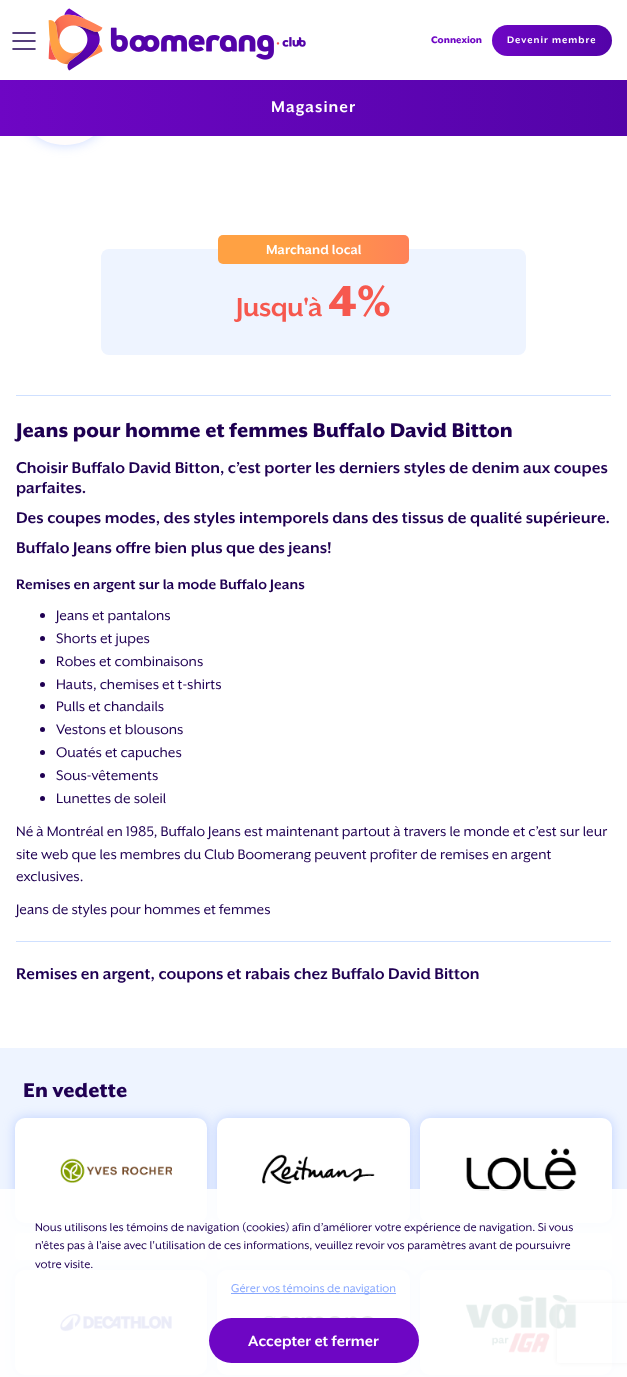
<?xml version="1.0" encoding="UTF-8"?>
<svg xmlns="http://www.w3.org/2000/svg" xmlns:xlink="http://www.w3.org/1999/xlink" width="627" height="1377">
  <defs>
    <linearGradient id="g1" gradientUnits="userSpaceOnUse" x1="492" y1="41" x2="612" y2="40"><stop offset="0" stop-color="#6e06c4" /><stop offset="1" stop-color="#5303a8" /></linearGradient>
    <linearGradient id="g2" gradientUnits="userSpaceOnUse" x1="0" y1="108" x2="627" y2="108"><stop offset="0" stop-color="#6e06c4" /><stop offset="1" stop-color="#5303a8" /></linearGradient>
    <linearGradient id="g3" gradientUnits="userSpaceOnUse" x1="218" y1="250" x2="409" y2="250"><stop offset="0.35" stop-color="#ffa143" /><stop offset="1" stop-color="#ff8257" /></linearGradient>
    <clipPath id="clip1"><path d="M 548 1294 h 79 v 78 h -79 z m 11 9 h 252 c 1 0 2 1 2 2 v 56 c 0 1 -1 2 -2 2 h -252 c -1 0 -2 -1 -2 -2 v -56 c 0 -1 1 -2 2 -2 z" clip-rule="evenodd" /></clipPath>
  </defs>
  <rect width="100%" height="100%" fill="#eef4ff" />
  <rect y="136" width="627" height="912" fill="#ffffff" />
  <rect x="15" y="45" width="100" height="100" rx="50" fill="#88a8ff" fill-opacity="0.45" filter="blur(6px)" />
  <circle cx="65" cy="95" r="50" fill="#fffcfc" />
  <rect width="627" height="80" fill="#ffffff" />
  <path d="M 13 49 h 22 m -22 -8 h 22 m -22 -8 h 22" fill="none" stroke="#1f0052" stroke-width="1.6" stroke-linecap="round" stroke-linejoin="round" />
  <image x="48" y="8" width="258" height="63" xlink:href="image1.png" />
  <rect x="492" y="25" width="120" height="31" rx="15.5" fill="url(#g1)" />
  <rect y="80" width="627" height="56" fill="url(#g2)" />
  <rect x="101" y="249" width="425" height="106" rx="8" fill="#eef4ff" />
  <rect x="218" y="235" width="191" height="29" rx="5" fill="url(#g3)" />
  <rect x="16" y="395" width="595" height="1" fill="#cfe0ff" />
  <circle cx="42.5" cy="615.5" r="2.5" fill="#1f0052" />
  <circle cx="42.5" cy="638.5" r="2.5" fill="#1f0052" />
  <circle cx="42.5" cy="661.5" r="2.5" fill="#1f0052" />
  <circle cx="42.5" cy="684.5" r="2.5" fill="#1f0052" />
  <circle cx="42.5" cy="706.5" r="2.5" fill="#1f0052" />
  <circle cx="42.5" cy="729.5" r="2.5" fill="#1f0052" />
  <circle cx="42.5" cy="752.5" r="2.5" fill="#1f0052" />
  <circle cx="42.5" cy="775.5" r="2.5" fill="#1f0052" />
  <circle cx="42.5" cy="798.5" r="2.5" fill="#1f0052" />
  <rect x="16" y="941" width="595" height="1" fill="#cfe0ff" />
  <rect x="15" y="1118" width="192" height="105" rx="10" fill="#88a8ff" fill-opacity="0.45" filter="blur(6px)" />
  <rect x="15" y="1118" width="192" height="105" rx="10" fill="#ffffff" />
  <image x="60" y="1158" width="112" height="25" xlink:href="image2.png" />
  <rect x="15" y="1233" width="192" height="27" rx="5" fill="#ffffff" />
  <rect x="217" y="1118" width="193" height="105" rx="10" fill="#88a8ff" fill-opacity="0.45" filter="blur(6px)" />
  <rect x="217" y="1118" width="193" height="105" rx="10" fill="#ffffff" />
  <image x="262" y="1154" width="113" height="30" xlink:href="image3.png" />
  <rect x="217" y="1233" width="193" height="27" rx="5" fill="#ffffff" />
  <rect x="420" y="1118" width="192" height="105" rx="10" fill="#88a8ff" fill-opacity="0.45" filter="blur(6px)" />
  <rect x="420" y="1118" width="192" height="105" rx="10" fill="#ffffff" />
  <image x="466" y="1148" width="111" height="43" xlink:href="image4.png" />
  <rect x="420" y="1233" width="192" height="27" rx="5" fill="#ffffff" />
  <rect x="15" y="1270" width="192" height="105" rx="10" fill="#88a8ff" fill-opacity="0.45" filter="blur(6px)" />
  <rect x="15" y="1270" width="192" height="105" rx="10" fill="#ffffff" />
  <image x="60" y="1313" width="112" height="19" xlink:href="image5.png" />
  <rect x="217" y="1270" width="193" height="105" rx="10" fill="#88a8ff" fill-opacity="0.45" filter="blur(6px)" />
  <rect x="217" y="1270" width="193" height="105" rx="10" fill="#ffffff" />
  <image x="264" y="1316" width="110" height="2" xlink:href="image6.png" />
  <rect x="420" y="1270" width="192" height="105" rx="10" fill="#88a8ff" fill-opacity="0.45" filter="blur(6px)" />
  <rect x="420" y="1270" width="192" height="105" rx="10" fill="#ffffff" />
  <image x="465" y="1295" width="112" height="58" xlink:href="image7.png" />
  <g clip-path="url(#clip1)">
    <rect x="557" y="1303" width="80" height="60" rx="2" fill="#808080" filter="blur(2.5px)" />
  </g>
  <rect y="1189" width="627" height="188" fill="#ffffff" fill-opacity="0.9" />
  <rect x="231" y="1293" width="165" height="1" fill="#88a8ff" />
  <rect x="209" y="1318" width="210" height="45" rx="22.5" fill="#6e06c4" />
  <text x="431" y="43" style="font-family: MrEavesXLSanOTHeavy; font-size: 11px; font-weight: 900; fill: #6e06c4">Connexion</text>
  <text x="507" y="43" style="font-family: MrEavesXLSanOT; font-size: 11px; font-weight: bold; letter-spacing: 1px; fill: #ffffff">Devenir membre</text>
  <text x="271" y="112" style="font-family: MrEavesXLSanOT; font-size: 18px; font-weight: bold; letter-spacing: 1px; fill: #ffffff">Magasiner</text>
  <text x="266" y="254" style="font-family: MrEavesXLSanOT; font-size: 15px; font-weight: bold; fill: #ffffff">Marchand local</text>
  <text x="236" y="316" style="font-family: MrEavesXLSanOT; font-size: 30px; font-weight: bold; letter-spacing: -0.5px; fill: #f6584e">Jusqu'à</text>
  <text x="328" y="316" style="font-family: MrEavesXLSanOTHeavy; font-size: 50px; font-weight: 900; letter-spacing: -0.5px; fill: #f6584e">4%</text>
  <text x="16" y="437" style="font-family: MrEavesXLSanOTHeavy; font-size: 23px; font-weight: 900; fill: #1f0052">Jeans pour homme et femmes Buffalo David Bitton</text>
  <text x="16" y="473" style="font-family: MrEavesXLSanOT; font-size: 18px; font-weight: bold; fill: #1f0052">Choisir Buffalo David Bitton, c’est porter les derniers styles de denim aux coupes</text>
  <text x="16" y="493" style="font-family: MrEavesXLSanOT; font-size: 18px; font-weight: bold; fill: #1f0052">parfaites.</text>
  <text x="16" y="523" style="font-family: MrEavesXLSanOT; font-size: 18px; font-weight: bold; fill: #1f0052">Des coupes modes, des styles intemporels dans des tissus de qualité supérieure.</text>
  <text x="16" y="553" style="font-family: MrEavesXLSanOT; font-size: 18px; font-weight: bold; fill: #1f0052">Buffalo Jeans offre bien plus que des jeans!</text>
  <text x="16" y="589" style="font-family: MrEavesXLSanOT; font-size: 16px; font-weight: bold; fill: #1f0052">Remises en argent sur la mode Buffalo Jeans</text>
  <text x="56" y="620" style="font-family: MrEavesXLSanOT; font-size: 16px; fill: #1f0052">Jeans et pantalons</text>
  <text x="56" y="643" style="font-family: MrEavesXLSanOT; font-size: 16px; fill: #1f0052">Shorts et jupes</text>
  <text x="56" y="666" style="font-family: MrEavesXLSanOT; font-size: 16px; fill: #1f0052">Robes et combinaisons</text>
  <text x="56" y="689" style="font-family: MrEavesXLSanOT; font-size: 16px; fill: #1f0052">Hauts, chemises et t-shirts</text>
  <text x="56" y="711" style="font-family: MrEavesXLSanOT; font-size: 16px; fill: #1f0052">Pulls et chandails</text>
  <text x="56" y="734" style="font-family: MrEavesXLSanOT; font-size: 16px; fill: #1f0052">Vestons et blousons</text>
  <text x="56" y="757" style="font-family: MrEavesXLSanOT; font-size: 16px; fill: #1f0052">Ouatés et capuches</text>
  <text x="56" y="780" style="font-family: MrEavesXLSanOT; font-size: 16px; fill: #1f0052">Sous-vêtements</text>
  <text x="56" y="803" style="font-family: MrEavesXLSanOT; font-size: 16px; fill: #1f0052">Lunettes de soleil</text>
  <text x="16" y="836" style="font-family: MrEavesXLSanOT; font-size: 16px; fill: #1f0052">Né à Montréal en 1985, Buffalo Jeans est maintenant partout à travers le monde et c’est sur leur</text>
  <text x="16" y="859" style="font-family: MrEavesXLSanOT; font-size: 16px; fill: #1f0052">site web que les membres du Club Boomerang peuvent profiter de remises en argent</text>
  <text x="16" y="881" style="font-family: MrEavesXLSanOT; font-size: 16px; fill: #1f0052">exclusives.</text>
  <text x="16" y="914" style="font-family: MrEavesXLSanOT; font-size: 16px; fill: #1f0052">Jeans de styles pour hommes et femmes</text>
  <text x="16" y="979" style="font-family: MrEavesXLSanOT; font-size: 18px; font-weight: bold; fill: #1f0052">Remises en argent, coupons et rabais chez Buffalo David Bitton</text>
  <text x="23" y="1097" style="font-family: MrEavesXLSanOTHeavy; font-size: 23px; font-weight: 900; fill: #1f0052">En vedette</text>
  <text x="35" y="1231" style="font-family: MrEavesXLSanOT; font-size: 13px; fill: #1f0052">Nous utilisons les témoins de navigation (cookies) afin d’améliorer votre expérience de navigation. Si vous</text>
  <text x="35" y="1249" style="font-family: MrEavesXLSanOT; font-size: 13px; fill: #1f0052">n'êtes pas à l'aise avec l'utilisation de ces informations, veuillez revoir vos paramètres avant de poursuivre</text>
  <text x="35" y="1268" style="font-family: MrEavesXLSanOT; font-size: 13px; fill: #1f0052">votre visite.</text>
  <text x="231" y="1292" style="font-family: MrEavesXLSanOT; font-size: 13px; fill: #88a8ff">Gérer vos témoins de navigation</text>
  <text x="248" y="1346" style="font-family: MrEavesXLSanOT; font-size: 17px; font-weight: bold; fill: #ffffff">Accepter et fermer</text>
</svg>
